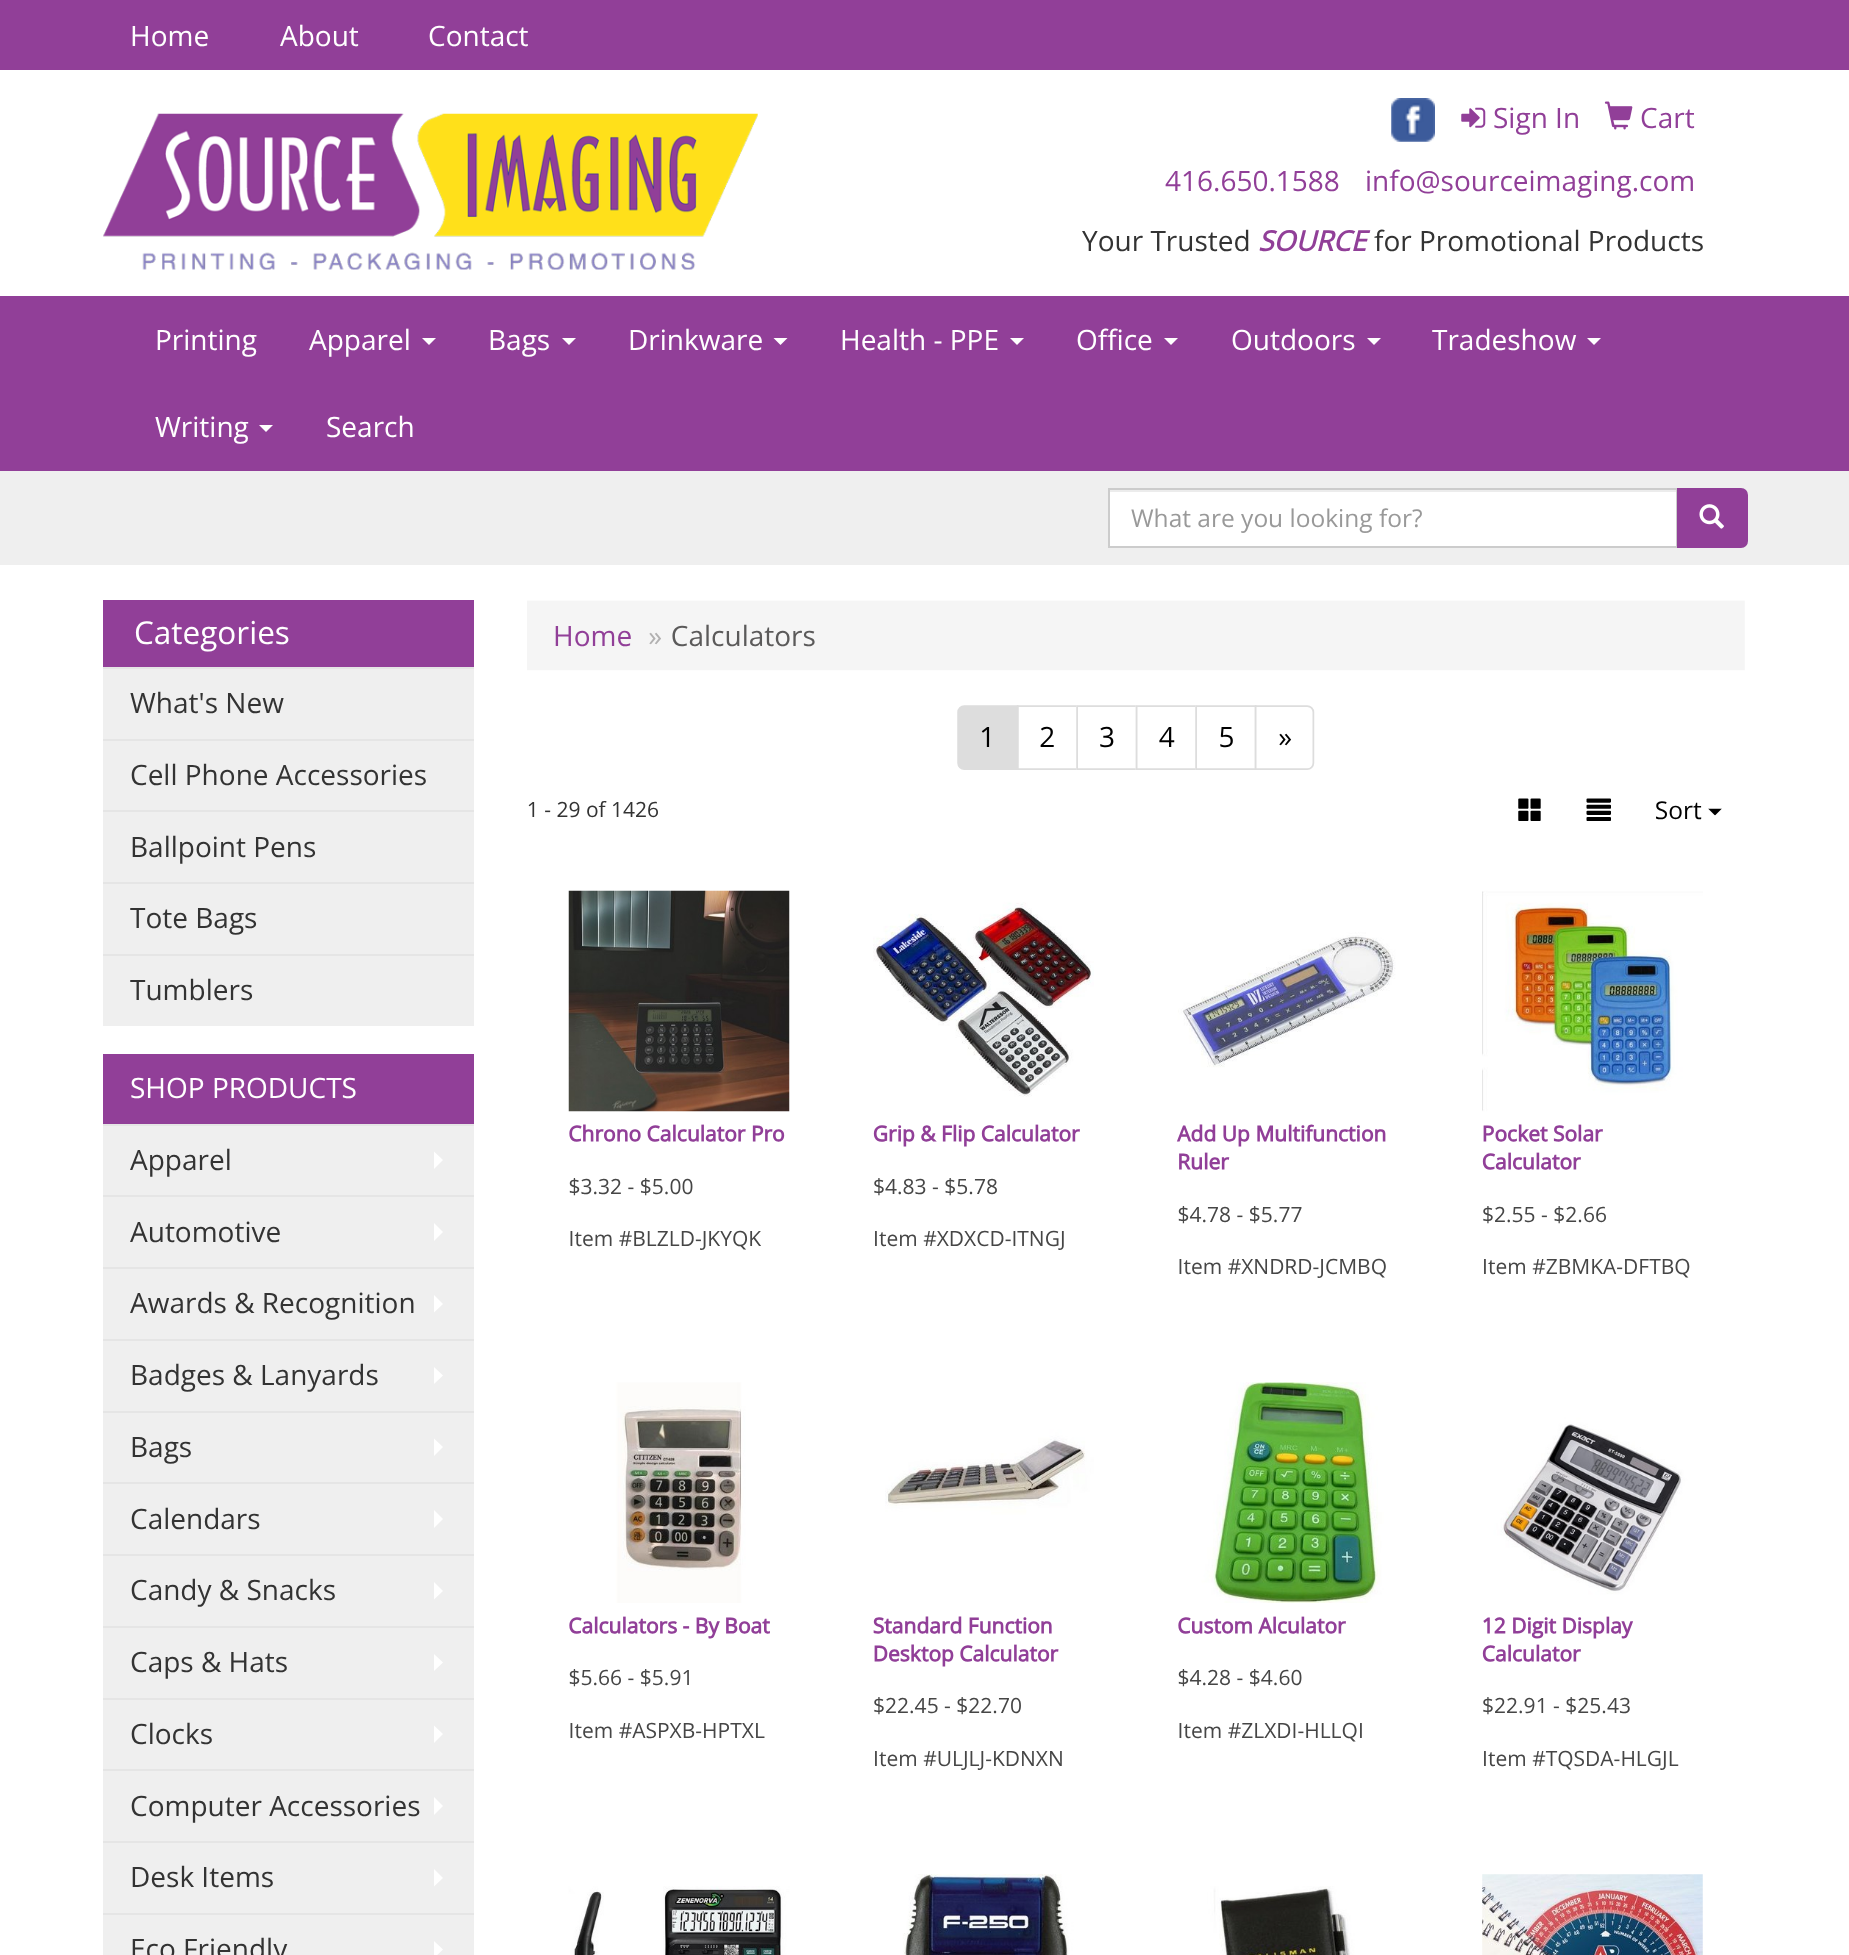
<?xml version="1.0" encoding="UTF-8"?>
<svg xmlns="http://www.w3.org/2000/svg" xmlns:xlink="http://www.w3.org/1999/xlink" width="1849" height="1955">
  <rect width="100%" height="100%" fill="#ffffff" />
  <rect width="1849" height="70" fill="#913f98" />
  <image x="103" y="113" width="655" height="157" xlink:href="image1.png" />
  <image x="1391" y="98" width="44" height="44" xlink:href="image2.png" />
  <image x="1461" y="107" width="25" height="21" xlink:href="image3.png" />
  <image x="1604" y="101" width="29" height="29" xlink:href="image4.png" />
  <rect y="296" width="1849" height="175" fill="#913f98" />
  <path d="M 422 338 h 14 l -7 7 z" fill="#ffffff" />
  <path d="M 562 338 h 14 l -7 7 z" fill="#ffffff" />
  <path d="M 773.5 338 h 14 l -7 7 z" fill="#ffffff" />
  <path d="M 1010 338 h 14 l -7 7 z" fill="#ffffff" />
  <path d="M 1164 338 h 14 l -7 7 z" fill="#ffffff" />
  <path d="M 1367 338 h 14 l -7 7 z" fill="#ffffff" />
  <path d="M 1587 338 h 14 l -7 7 z" fill="#ffffff" />
  <path d="M 259 425 h 14 l -7 7 z" fill="#ffffff" />
  <rect y="471" width="1849" height="94" fill="#efefef" />
  <rect x="1110" y="492" width="566" height="54" fill="#ffffff" />
  <rect x="1110" y="490" width="567" height="2" fill="#ececec" />
  <rect x="1109" y="489" width="568" height="58" fill="none" stroke="#cccccc" stroke-width="2" />
  <path d="M 1678 489 h 63 c 3.5 0 6 2.5 6 6 v 46 c 0 3.5 -2.5 6 -6 6 h -63 z" fill="#913f98" stroke="#913f98" stroke-width="2" />
  <image x="1699" y="504" width="25" height="25" xlink:href="image5.png" />
  <rect x="103" y="600" width="371" height="67" fill="#913f98" />
  <rect x="103" y="669" width="371" height="70" fill="#efefef" />
  <rect x="103" y="667" width="371" height="2" fill="#e5e5e5" />
  <rect x="103" y="741" width="371" height="69" fill="#efefef" />
  <rect x="103" y="739" width="371" height="2" fill="#e5e5e5" />
  <rect x="103" y="812" width="371" height="70" fill="#efefef" />
  <rect x="103" y="810" width="371" height="2" fill="#e5e5e5" />
  <rect x="103" y="884" width="371" height="70" fill="#efefef" />
  <rect x="103" y="882" width="371" height="2" fill="#e5e5e5" />
  <rect x="103" y="956" width="371" height="70" fill="#efefef" />
  <rect x="103" y="954" width="371" height="2" fill="#e5e5e5" />
  <rect x="103" y="1054" width="371" height="70" fill="#913f98" />
  <rect x="103" y="1126" width="371" height="69" fill="#efefef" />
  <rect x="103" y="1124" width="371" height="2" fill="#e5e5e5" />
  <path d="M 434 1169 v -17.5 l 9 8.5 z" fill="#ffffff" />
  <rect x="103" y="1197" width="371" height="70" fill="#efefef" />
  <rect x="103" y="1195" width="371" height="2" fill="#e5e5e5" />
  <path d="M 434 1241 v -18 l 9 9 z" fill="#ffffff" />
  <rect x="103" y="1269" width="371" height="70" fill="#efefef" />
  <rect x="103" y="1267" width="371" height="2" fill="#e5e5e5" />
  <path d="M 434 1312.5 v -17.5 l 9 9 z" fill="#ffffff" />
  <rect x="103" y="1341" width="371" height="70" fill="#efefef" />
  <rect x="103" y="1339" width="371" height="2" fill="#e5e5e5" />
  <path d="M 434 1384 v -17 l 9 8.5 z" fill="#ffffff" />
  <rect x="103" y="1413" width="371" height="69" fill="#efefef" />
  <rect x="103" y="1411" width="371" height="2" fill="#e5e5e5" />
  <path d="M 434 1456 v -17.5 l 9 8.5 z" fill="#ffffff" />
  <rect x="103" y="1484" width="371" height="70" fill="#efefef" />
  <rect x="103" y="1482" width="371" height="2" fill="#e5e5e5" />
  <path d="M 434 1528 v -18 l 9 9 z" fill="#ffffff" />
  <rect x="103" y="1556" width="371" height="70" fill="#efefef" />
  <rect x="103" y="1554" width="371" height="2" fill="#e5e5e5" />
  <path d="M 434 1599.5 v -17.5 l 9 9 z" fill="#ffffff" />
  <rect x="103" y="1628" width="371" height="70" fill="#efefef" />
  <rect x="103" y="1626" width="371" height="2" fill="#e5e5e5" />
  <path d="M 434 1671 v -17 l 9 8.5 z" fill="#ffffff" />
  <rect x="103" y="1700" width="371" height="69" fill="#efefef" />
  <rect x="103" y="1698" width="371" height="2" fill="#e5e5e5" />
  <path d="M 434 1743 v -17.5 l 9 8.5 z" fill="#ffffff" />
  <rect x="103" y="1771" width="371" height="70" fill="#efefef" />
  <rect x="103" y="1769" width="371" height="2" fill="#e5e5e5" />
  <path d="M 434 1815 v -18 l 9 9 z" fill="#ffffff" />
  <rect x="103" y="1843" width="371" height="70" fill="#efefef" />
  <rect x="103" y="1841" width="371" height="2" fill="#e5e5e5" />
  <path d="M 434 1886.5 v -17.5 l 9 9 z" fill="#ffffff" />
  <rect x="103" y="1915" width="371" height="40" fill="#efefef" />
  <rect x="103" y="1913" width="371" height="2" fill="#e5e5e5" />
  <path d="M 434 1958 v -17 l 9 8.5 z" fill="#ffffff" />
  <image x="527" y="600" width="1218" height="1355" xlink:href="image6.png" />
  <text x="130" y="46" style="font-family: Open Sans; font-size: 28px; fill: #ffffff">Home</text>
  <text x="280" y="46" style="font-family: Open Sans; font-size: 28px; fill: #ffffff">About</text>
  <text x="428" y="46" style="font-family: Open Sans; font-size: 28px; fill: #ffffff">Contact</text>
  <text x="1493" y="128" style="font-family: Open Sans; font-size: 28px; fill: #913f98">Sign In</text>
  <text x="1640" y="128" style="font-family: Open Sans; font-size: 28px; fill: #913f98">Cart</text>
  <text x="1165" y="191" style="font-family: Open Sans; font-size: 28px; fill: #913f98">416.650.1588</text>
  <text x="1365" y="191" style="font-family: Open Sans; font-size: 28px; fill: #913f98">info@sourceimaging.com</text>
  <text x="1082" y="251" style="font-family: Open Sans; font-size: 28px; fill: #333333">Your Trusted</text>
  <text x="1258" y="251" style="font-family: Open Sans; font-size: 28px; font-weight: bold; font-style: italic; fill: #913f98">SOURCE</text>
  <text x="1374" y="251" style="font-family: Open Sans; font-size: 28px; fill: #333333">for Promotional Products</text>
  <text x="155" y="350" style="font-family: Open Sans; font-size: 28px; fill: #ffffff">Printing</text>
  <text x="309" y="350" style="font-family: Open Sans; font-size: 28px; fill: #ffffff">Apparel</text>
  <text x="488" y="350" style="font-family: Open Sans; font-size: 28px; fill: #ffffff">Bags</text>
  <text x="628" y="350" style="font-family: Open Sans; font-size: 28px; fill: #ffffff">Drinkware</text>
  <text x="840" y="350" style="font-family: Open Sans; font-size: 28px; fill: #ffffff">Health - PPE</text>
  <text x="1076" y="350" style="font-family: Open Sans; font-size: 28px; fill: #ffffff">Office</text>
  <text x="1231" y="350" style="font-family: Open Sans; font-size: 28px; fill: #ffffff">Outdoors</text>
  <text x="1432" y="350" style="font-family: Open Sans; font-size: 28px; fill: #ffffff">Tradeshow</text>
  <text x="155" y="437" style="font-family: Open Sans; font-size: 28px; fill: #ffffff">Writing</text>
  <text x="326" y="437" style="font-family: Open Sans; font-size: 28px; fill: #ffffff">Search</text>
  <text x="1131" y="527" style="font-family: Open Sans; font-size: 24.5px; fill: #999999">What are you looking for?</text>
  <text x="134" y="644" style="font-family: Open Sans; font-size: 31.5px; fill: #ffffff">Categories</text>
  <text x="130" y="713" style="font-family: Open Sans; font-size: 28px; fill: #333333">What's New</text>
  <text x="130" y="785" style="font-family: Open Sans; font-size: 28px; fill: #333333">Cell Phone Accessories</text>
  <text x="130" y="857" style="font-family: Open Sans; font-size: 28px; fill: #333333">Ballpoint Pens</text>
  <text x="130" y="928" style="font-family: Open Sans; font-size: 28px; fill: #333333">Tote Bags</text>
  <text x="130" y="1000" style="font-family: Open Sans; font-size: 28px; fill: #333333">Tumblers</text>
  <text x="130" y="1098" style="font-family: Open Sans; font-size: 28px; fill: #ffffff">SHOP PRODUCTS</text>
  <text x="130" y="1170" style="font-family: Open Sans; font-size: 28px; fill: #333333">Apparel</text>
  <text x="130" y="1242" style="font-family: Open Sans; font-size: 28px; fill: #333333">Automotive</text>
  <text x="130" y="1313" style="font-family: Open Sans; font-size: 28px; fill: #333333">Awards &amp; Recognition</text>
  <text x="130" y="1385" style="font-family: Open Sans; font-size: 28px; fill: #333333">Badges &amp; Lanyards</text>
  <text x="130" y="1457" style="font-family: Open Sans; font-size: 28px; fill: #333333">Bags</text>
  <text x="130" y="1529" style="font-family: Open Sans; font-size: 28px; fill: #333333">Calendars</text>
  <text x="130" y="1600" style="font-family: Open Sans; font-size: 28px; fill: #333333">Candy &amp; Snacks</text>
  <text x="130" y="1672" style="font-family: Open Sans; font-size: 28px; fill: #333333">Caps &amp; Hats</text>
  <text x="130" y="1744" style="font-family: Open Sans; font-size: 28px; fill: #333333">Clocks</text>
  <text x="130" y="1816" style="font-family: Open Sans; font-size: 28px; fill: #333333">Computer Accessories</text>
  <text x="130" y="1887" style="font-family: Open Sans; font-size: 28px; fill: #333333">Desk Items</text>
  <text x="130" y="1959" style="font-family: Open Sans; font-size: 28px; fill: #333333">Eco Friendly</text>
</svg>
